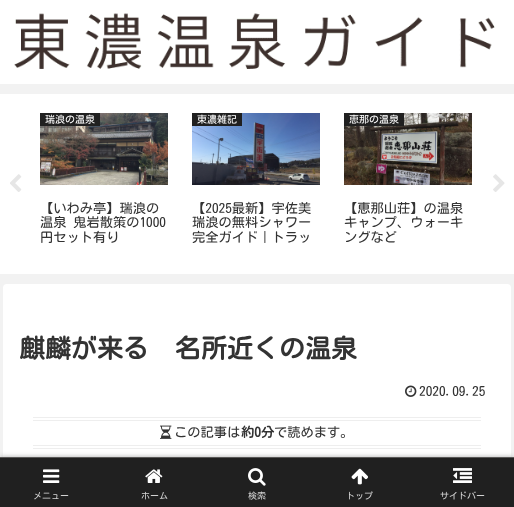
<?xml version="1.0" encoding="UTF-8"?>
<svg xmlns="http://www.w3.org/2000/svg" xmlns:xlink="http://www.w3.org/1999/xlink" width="514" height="507">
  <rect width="100%" height="100%" fill="#f2f2f2" />
  <rect width="514" height="84" fill="#ffffff" />
  <image x="14" y="13" width="481" height="56" xlink:href="image1.png" />
  <rect y="94" width="514" height="180" fill="#ffffff" />
  <image x="10" y="174" width="12" height="18" xlink:href="image2.png" />
  <image x="40" y="113" width="128" height="72" xlink:href="image3.png" />
  <rect x="40" y="113" width="60" height="13" fill="#202020" />
  <image x="192" y="113" width="128" height="72" xlink:href="image4.png" />
  <rect x="192" y="113" width="50" height="13" fill="#202020" />
  <image x="344" y="113" width="128" height="72" xlink:href="image5.png" />
  <rect x="344" y="113" width="60" height="13" fill="#202020" />
  <image x="493" y="174" width="12" height="18" xlink:href="image6.png" />
  <rect x="3" y="284" width="508" height="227" rx="4" fill="#ffffff" />
  <image x="405" y="385" width="12" height="12" xlink:href="image7.png" />
  <rect x="33" y="417" width="448" height="1" fill="#eeeeee" />
  <rect x="33" y="420" width="448" height="1" fill="#eeeeee" />
  <rect x="33" y="445" width="448" height="1" fill="#eeeeee" />
  <rect x="33" y="448" width="448" height="1" fill="#eeeeee" />
  <image x="160" y="425" width="12" height="14" xlink:href="image8.png" />
  <rect y="457" width="514" height="50" fill="#a9a9a9" filter="blur(2.5px)" />
  <rect y="458" width="514" height="49" fill="#202020" />
  <rect y="457" width="514" height="1" fill="#595857" />
  <image x="43" y="469" width="17" height="14" xlink:href="image9.png" />
  <image x="145" y="469" width="18" height="14" xlink:href="image10.png" />
  <image x="248" y="468" width="18" height="18" xlink:href="image11.png" />
  <image x="351" y="468" width="17" height="17" xlink:href="image12.png" />
  <image x="453" y="468" width="19" height="15" xlink:href="image13.png" />
  <text x="45" y="123" style="font-family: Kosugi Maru; font-size: 10px; fill: #ffffff">瑞浪の温泉</text>
  <text x="40" y="213" style="font-family: Kosugi Maru; font-size: 13.25px; fill: #333333">【いわみ亭】瑞浪の</text>
  <text x="40" y="227" style="font-family: Kosugi Maru; font-size: 13.25px; fill: #333333">温泉 鬼岩散策の1000</text>
  <text x="40" y="242" style="font-family: Kosugi Maru; font-size: 13.25px; fill: #333333">円セット有り</text>
  <text x="197" y="123" style="font-family: Kosugi Maru; font-size: 10px; fill: #ffffff">東濃雑記</text>
  <text x="192" y="213" style="font-family: Kosugi Maru; font-size: 13.25px; fill: #333333">【2025最新】宇佐美</text>
  <text x="192" y="227" style="font-family: Kosugi Maru; font-size: 13.25px; fill: #333333">瑞浪の無料シャワー</text>
  <text x="192" y="242" style="font-family: Kosugi Maru; font-size: 13.25px; fill: #333333">完全ガイド｜トラッ</text>
  <text x="349" y="123" style="font-family: Kosugi Maru; font-size: 10px; fill: #ffffff">恵那の温泉</text>
  <text x="344" y="213" style="font-family: Kosugi Maru; font-size: 13.25px; fill: #333333">【恵那山荘】の温泉</text>
  <text x="344" y="227" style="font-family: Kosugi Maru; font-size: 13.25px; fill: #333333">キャンプ、ウォーキ</text>
  <text x="344" y="242" style="font-family: Kosugi Maru; font-size: 13.25px; fill: #333333">ングなど</text>
  <text x="19" y="358" style="font-family: Kosugi Maru; font-size: 26px; font-weight: bold; fill: #333333">麒麟が来る　名所近くの温泉</text>
  <text x="419" y="396" style="font-family: Kosugi Maru; font-size: 13.25px; fill: #333333">2020.09.25</text>
  <text x="174" y="437" style="font-family: Kosugi Maru; font-size: 13.25px; fill: #333333">この記事は</text>
  <text x="241" y="437" style="font-family: Kosugi Maru; font-size: 13.25px; font-weight: bold; fill: #333333">約0分</text>
  <text x="274" y="437" style="font-family: Kosugi Maru; font-size: 13.25px; fill: #333333">で読めます。</text>
  <text x="33" y="499" style="font-family: Kosugi Maru; font-size: 9px; fill: #d2d2d2">メニュー</text>
  <text x="141" y="499" style="font-family: Kosugi Maru; font-size: 9px; fill: #d2d2d2">ホーム</text>
  <text x="248" y="499" style="font-family: Kosugi Maru; font-size: 9px; fill: #d2d2d2">検索</text>
  <text x="346" y="499" style="font-family: Kosugi Maru; font-size: 9px; fill: #d2d2d2">トップ</text>
  <text x="440" y="499" style="font-family: Kosugi Maru; font-size: 9px; fill: #d2d2d2">サイドバー</text>
</svg>
